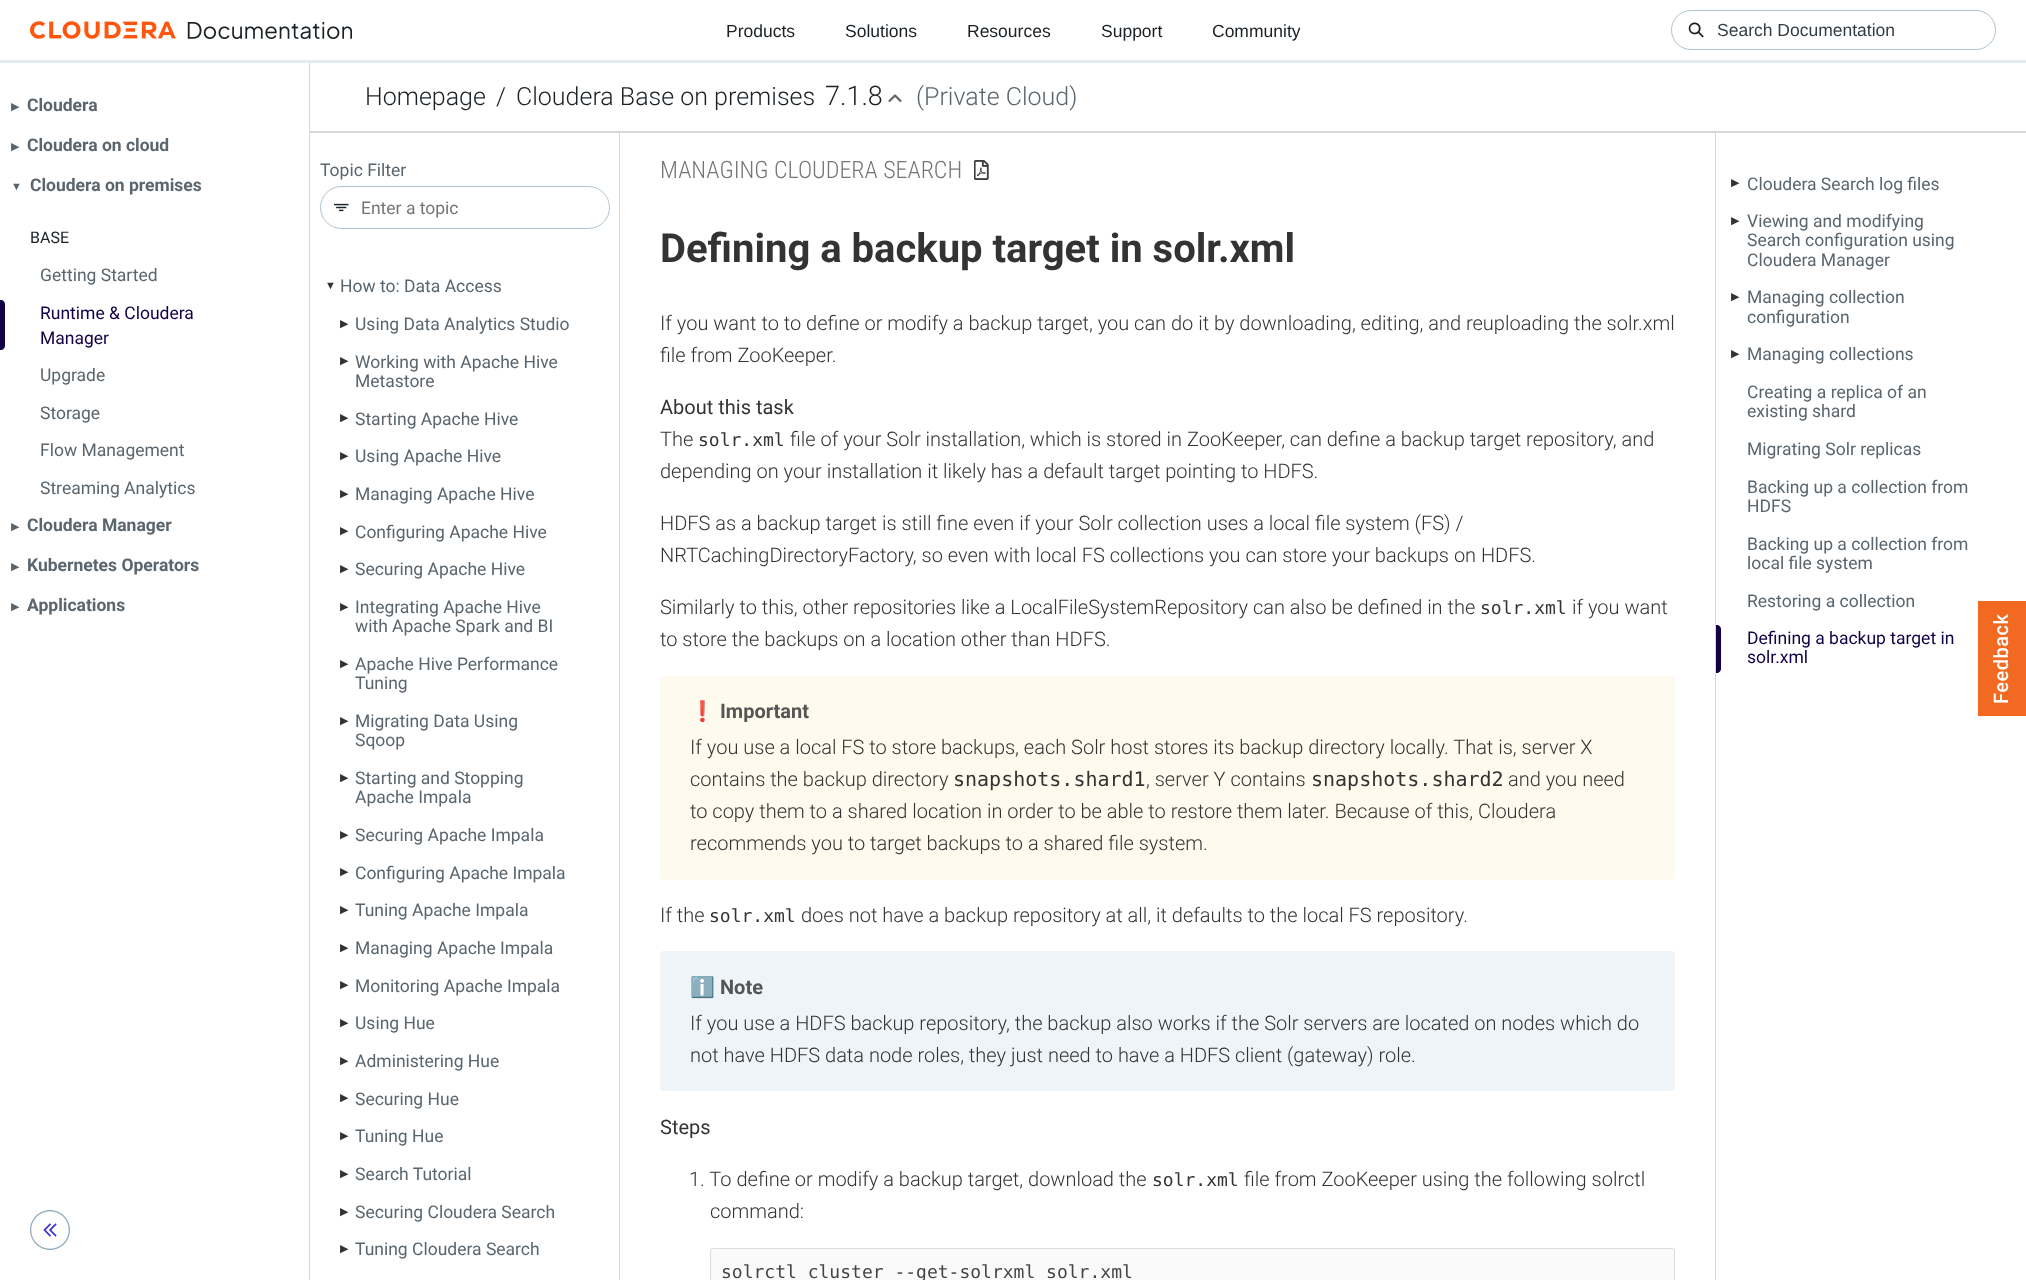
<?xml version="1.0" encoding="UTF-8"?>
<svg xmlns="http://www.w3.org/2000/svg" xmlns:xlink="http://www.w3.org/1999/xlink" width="2026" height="1280">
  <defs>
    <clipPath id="clip1"><rect x="310" y="131" width="310" height="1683" /></clipPath>
  </defs>
  <rect width="100%" height="100%" fill="#ffffff" />
  <rect y="60" width="2026" height="3" fill="#e5ecf1" />
  <image x="30" y="21" width="322" height="18" xlink:href="image1.png" />
  <rect x="1671.5" y="10.5" width="324" height="39" rx="19.5" fill="none" stroke="#afc4d2" />
  <image x="1688" y="22" width="16" height="16" xlink:href="image2.png" />
  <rect x="309" y="63" width="1" height="1217" fill="#d6d8db" />
  <path d="M 0 300 h 1 c 2 0 4 2 4 4 v 42 c 0 2 -2 4 -4 4 h -1 z" fill="#120046" />
  <image x="30" y="1210" width="40" height="40" xlink:href="image3.png" />
  <g clip-path="url(#clip1)">
    <path d="M 186 8 h 558 v 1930 h -558 z m 123 124 h 310 v 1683 h -310 z" fill="#d6d8db" fill-rule="evenodd" />
  </g>
  <rect x="1715" y="131" width="1" height="1149" fill="#d6d8db" />
  <rect x="310" y="131" width="1716" height="2" fill="#d6d8db" />
  <image x="888" y="94" width="14" height="8" xlink:href="image4.png" />
  <rect x="320.5" y="186.5" width="289" height="42" rx="21" fill="none" stroke="#afc4d2" />
  <image x="333" y="203" width="16" height="9" xlink:href="image5.png" />
  <image x="974" y="160" width="15" height="20" xlink:href="image6.png" />
  <rect x="660" y="676" width="1015" height="204" rx="4" fill="#fefaee" />
  <rect x="660" y="951" width="1015" height="140" rx="4" fill="#eef4f7" />
  <rect x="710.5" y="1248.5" width="964" height="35" rx="2" fill="#fafafa" stroke="#dcdcdc" />
  <path d="M 1716 625 h 1 c 2 0 4 2 4 4 v 40 c 0 2 -2 4 -4 4 h -1 z" fill="#120046" />
  <rect x="1978" y="601" width="48" height="115" fill="#f26922" />
  <text x="726" y="37" style="font-family: Liberation Sans; font-size: 17.5px; fill: #1a2024">Products</text>
  <text x="845" y="37" style="font-family: Liberation Sans; font-size: 17.5px; fill: #1a2024">Solutions</text>
  <text x="967" y="37" style="font-family: Liberation Sans; font-size: 17.5px; fill: #1a2024">Resources</text>
  <text x="1101" y="37" style="font-family: Liberation Sans; font-size: 17.5px; fill: #1a2024">Support</text>
  <text x="1212" y="37" style="font-family: Liberation Sans; font-size: 17.5px; fill: #1a2024">Community</text>
  <text x="1717" y="36" style="font-family: Liberation Sans; font-size: 17.5px; fill: #333d43">Search Documentation</text>
  <text x="11" y="110" style="font-family: DejaVu Sans; font-size: 11px; fill: #5a656d">▶︎</text>
  <text x="27" y="111" style="font-family: Roboto; font-size: 17.5px; font-weight: bold; fill: #5a656d">Cloudera</text>
  <text x="11" y="150" style="font-family: DejaVu Sans; font-size: 11px; fill: #5a656d">▶︎</text>
  <text x="27" y="151" style="font-family: Roboto; font-size: 17.5px; font-weight: bold; fill: #5a656d">Cloudera on cloud</text>
  <text x="11" y="190" style="font-family: Liberation Sans; font-size: 11px; fill: #5a656d">▼</text>
  <text x="30" y="191" style="font-family: Roboto; font-size: 17.5px; font-weight: bold; fill: #5a656d">Cloudera on premises</text>
  <text x="30" y="243" style="font-family: Roboto; font-size: 16px; fill: #1a2024">BASE</text>
  <text x="40" y="281" style="font-family: Roboto; font-size: 17.5px; fill: #5a656d">Getting Started</text>
  <text x="40" y="319" style="font-family: Roboto; font-size: 17.5px; fill: #120046">Runtime &amp; Cloudera</text>
  <text x="40" y="344" style="font-family: Roboto; font-size: 17.5px; fill: #120046">Manager</text>
  <text x="40" y="381" style="font-family: Roboto; font-size: 17.5px; fill: #5a656d">Upgrade</text>
  <text x="40" y="419" style="font-family: Roboto; font-size: 17.5px; fill: #5a656d">Storage</text>
  <text x="40" y="456" style="font-family: Roboto; font-size: 17.5px; fill: #5a656d">Flow Management</text>
  <text x="40" y="494" style="font-family: Roboto; font-size: 17.5px; fill: #5a656d">Streaming Analytics</text>
  <text x="11" y="530" style="font-family: DejaVu Sans; font-size: 11px; fill: #5a656d">▶︎</text>
  <text x="27" y="531" style="font-family: Roboto; font-size: 17.5px; font-weight: bold; fill: #5a656d">Cloudera Manager</text>
  <text x="11" y="570" style="font-family: DejaVu Sans; font-size: 11px; fill: #5a656d">▶︎</text>
  <text x="27" y="571" style="font-family: Roboto; font-size: 17.5px; font-weight: bold; fill: #5a656d">Kubernetes Operators</text>
  <text x="11" y="610" style="font-family: DejaVu Sans; font-size: 11px; fill: #5a656d">▶︎</text>
  <text x="27" y="611" style="font-family: Roboto; font-size: 17.5px; font-weight: bold; fill: #5a656d">Applications</text>
  <text x="365" y="105" style="font-family: Roboto; font-size: 25px; font-weight: 300; fill: #1a2024">Homepage</text>
  <text x="496" y="105" style="font-family: Roboto; font-size: 25px; font-weight: 300; fill: #1a2024">/</text>
  <text x="516" y="105" style="font-family: Roboto; font-size: 25px; font-weight: 300; fill: #1a2024">Cloudera Base on premises</text>
  <text x="825" y="105" style="font-family: Roboto; font-size: 27px; font-weight: 300; fill: #1a2024">7.1.8</text>
  <text x="916" y="105" style="font-family: Roboto; font-size: 25px; font-weight: 300; fill: #5a656d">(Private Cloud)</text>
  <text x="320" y="176" style="font-family: Roboto; font-size: 17.5px; fill: #5a656d">Topic Filter</text>
  <text x="361" y="214" style="font-family: Roboto; font-size: 17.5px; fill: #757575">Enter a topic</text>
  <text x="325" y="289" style="font-family: Liberation Sans; font-size: 11px; fill: #333333">▼</text>
  <text x="340" y="292" style="font-family: Roboto; font-size: 17.5px; fill: #5a656d">How to: Data Access</text>
  <text x="340" y="327" style="font-family: DejaVu Sans; font-size: 11px; fill: #333333">▶︎</text>
  <text x="355" y="330" style="font-family: Roboto; font-size: 17.5px; fill: #5a656d">Using Data Analytics Studio</text>
  <text x="340" y="364" style="font-family: DejaVu Sans; font-size: 11px; fill: #333333">▶︎</text>
  <text x="355" y="368" style="font-family: Roboto; font-size: 17.5px; fill: #5a656d">Working with Apache Hive</text>
  <text x="355" y="387" style="font-family: Roboto; font-size: 17.5px; fill: #5a656d">Metastore</text>
  <text x="340" y="421" style="font-family: DejaVu Sans; font-size: 11px; fill: #333333">▶︎</text>
  <text x="355" y="425" style="font-family: Roboto; font-size: 17.5px; fill: #5a656d">Starting Apache Hive</text>
  <text x="340" y="459" style="font-family: DejaVu Sans; font-size: 11px; fill: #333333">▶︎</text>
  <text x="355" y="462" style="font-family: Roboto; font-size: 17.5px; fill: #5a656d">Using Apache Hive</text>
  <text x="340" y="497" style="font-family: DejaVu Sans; font-size: 11px; fill: #333333">▶︎</text>
  <text x="355" y="500" style="font-family: Roboto; font-size: 17.5px; fill: #5a656d">Managing Apache Hive</text>
  <text x="340" y="534" style="font-family: DejaVu Sans; font-size: 11px; fill: #333333">▶︎</text>
  <text x="355" y="538" style="font-family: Roboto; font-size: 17.5px; fill: #5a656d">Configuring Apache Hive</text>
  <text x="340" y="572" style="font-family: DejaVu Sans; font-size: 11px; fill: #333333">▶︎</text>
  <text x="355" y="575" style="font-family: Roboto; font-size: 17.5px; fill: #5a656d">Securing Apache Hive</text>
  <text x="340" y="610" style="font-family: DejaVu Sans; font-size: 11px; fill: #333333">▶︎</text>
  <text x="355" y="613" style="font-family: Roboto; font-size: 17.5px; fill: #5a656d">Integrating Apache Hive</text>
  <text x="355" y="632" style="font-family: Roboto; font-size: 17.5px; fill: #5a656d">with Apache Spark and BI</text>
  <text x="340" y="667" style="font-family: DejaVu Sans; font-size: 11px; fill: #333333">▶︎</text>
  <text x="355" y="670" style="font-family: Roboto; font-size: 17.5px; fill: #5a656d">Apache Hive Performance</text>
  <text x="355" y="689" style="font-family: Roboto; font-size: 17.5px; fill: #5a656d">Tuning</text>
  <text x="340" y="724" style="font-family: DejaVu Sans; font-size: 11px; fill: #333333">▶︎</text>
  <text x="355" y="727" style="font-family: Roboto; font-size: 17.5px; fill: #5a656d">Migrating Data Using</text>
  <text x="355" y="746" style="font-family: Roboto; font-size: 17.5px; fill: #5a656d">Sqoop</text>
  <text x="340" y="781" style="font-family: DejaVu Sans; font-size: 11px; fill: #333333">▶︎</text>
  <text x="355" y="784" style="font-family: Roboto; font-size: 17.5px; fill: #5a656d">Starting and Stopping</text>
  <text x="355" y="803" style="font-family: Roboto; font-size: 17.5px; fill: #5a656d">Apache Impala</text>
  <text x="340" y="838" style="font-family: DejaVu Sans; font-size: 11px; fill: #333333">▶︎</text>
  <text x="355" y="841" style="font-family: Roboto; font-size: 17.5px; fill: #5a656d">Securing Apache Impala</text>
  <text x="340" y="875" style="font-family: DejaVu Sans; font-size: 11px; fill: #333333">▶︎</text>
  <text x="355" y="879" style="font-family: Roboto; font-size: 17.5px; fill: #5a656d">Configuring Apache Impala</text>
  <text x="340" y="913" style="font-family: DejaVu Sans; font-size: 11px; fill: #333333">▶︎</text>
  <text x="355" y="916" style="font-family: Roboto; font-size: 17.5px; fill: #5a656d">Tuning Apache Impala</text>
  <text x="340" y="951" style="font-family: DejaVu Sans; font-size: 11px; fill: #333333">▶︎</text>
  <text x="355" y="954" style="font-family: Roboto; font-size: 17.5px; fill: #5a656d">Managing Apache Impala</text>
  <text x="340" y="988" style="font-family: DejaVu Sans; font-size: 11px; fill: #333333">▶︎</text>
  <text x="355" y="992" style="font-family: Roboto; font-size: 17.5px; fill: #5a656d">Monitoring Apache Impala</text>
  <text x="340" y="1026" style="font-family: DejaVu Sans; font-size: 11px; fill: #333333">▶︎</text>
  <text x="355" y="1029" style="font-family: Roboto; font-size: 17.5px; fill: #5a656d">Using Hue</text>
  <text x="340" y="1064" style="font-family: DejaVu Sans; font-size: 11px; fill: #333333">▶︎</text>
  <text x="355" y="1067" style="font-family: Roboto; font-size: 17.5px; fill: #5a656d">Administering Hue</text>
  <text x="340" y="1101" style="font-family: DejaVu Sans; font-size: 11px; fill: #333333">▶︎</text>
  <text x="355" y="1105" style="font-family: Roboto; font-size: 17.5px; fill: #5a656d">Securing Hue</text>
  <text x="340" y="1139" style="font-family: DejaVu Sans; font-size: 11px; fill: #333333">▶︎</text>
  <text x="355" y="1142" style="font-family: Roboto; font-size: 17.5px; fill: #5a656d">Tuning Hue</text>
  <text x="340" y="1177" style="font-family: DejaVu Sans; font-size: 11px; fill: #333333">▶︎</text>
  <text x="355" y="1180" style="font-family: Roboto; font-size: 17.5px; fill: #5a656d">Search Tutorial</text>
  <text x="340" y="1215" style="font-family: DejaVu Sans; font-size: 11px; fill: #333333">▶︎</text>
  <text x="355" y="1218" style="font-family: Roboto; font-size: 17.5px; fill: #5a656d">Securing Cloudera Search</text>
  <text x="340" y="1252" style="font-family: DejaVu Sans; font-size: 11px; fill: #333333">▶︎</text>
  <text x="355" y="1255" style="font-family: Roboto; font-size: 17.5px; fill: #5a656d">Tuning Cloudera Search</text>
  <text x="660" y="178" style="font-family: Roboto Condensed; font-size: 24px; font-weight: 300; fill: #757575">MANAGING CLOUDERA SEARCH</text>
  <text x="660" y="262" style="font-family: Roboto; font-size: 40px; font-weight: bold; fill: #333333">Defining a backup target in solr.xml</text>
  <text x="660" y="330" style="font-family: Roboto; font-size: 20px; font-weight: 300; fill: #333333">If you want to to define or modify a backup target, you can do it by downloading, editing, and reuploading the solr.xml</text>
  <text x="660" y="362" style="font-family: Roboto; font-size: 20px; font-weight: 300; fill: #333333">file from ZooKeeper.</text>
  <text x="660" y="414" style="font-family: Roboto; font-size: 20px; fill: #333333">About this task</text>
  <text x="660" y="446" style="font-family: Roboto; font-size: 20px; font-weight: 300; fill: #333333">The</text>
  <text x="698" y="446" style="font-family: DejaVu Sans Mono; font-size: 18px; fill: #333333">solr.xml</text>
  <text x="790" y="446" style="font-family: Roboto; font-size: 20px; font-weight: 300; fill: #333333">file of your Solr installation, which is stored in ZooKeeper, can define a backup target repository, and</text>
  <text x="660" y="478" style="font-family: Roboto; font-size: 20px; font-weight: 300; fill: #333333">depending on your installation it likely has a default target pointing to HDFS.</text>
  <text x="660" y="530" style="font-family: Roboto; font-size: 20px; font-weight: 300; fill: #333333">HDFS as a backup target is still fine even if your Solr collection uses a local file system (FS) /</text>
  <text x="660" y="562" style="font-family: Roboto; font-size: 20px; font-weight: 300; fill: #333333">NRTCachingDirectoryFactory, so even with local FS collections you can store your backups on HDFS.</text>
  <text x="660" y="614" style="font-family: Roboto; font-size: 20px; font-weight: 300; fill: #333333">Similarly to this, other repositories like a LocalFileSystemRepository can also be defined in the</text>
  <text x="1480" y="614" style="font-family: DejaVu Sans Mono; font-size: 18px; fill: #333333">solr.xml</text>
  <text x="1572" y="614" style="font-family: Roboto; font-size: 20px; font-weight: 300; fill: #333333">if you want</text>
  <text x="660" y="646" style="font-family: Roboto; font-size: 20px; font-weight: 300; fill: #333333">to store the backups on a location other than HDFS.</text>
  <text x="690" y="718" style="font-family: Noto Color Emoji; font-size: 20px; font-weight: bold; fill: #555555">❗️</text>
  <text x="720" y="718" style="font-family: Roboto; font-size: 20px; font-weight: bold; fill: #555555">Important</text>
  <text x="690" y="754" style="font-family: Roboto; font-size: 20px; font-weight: 300; fill: #333333">If you use a local FS to store backups, each Solr host stores its backup directory locally. That is, server X</text>
  <text x="690" y="786" style="font-family: Roboto; font-size: 20px; font-weight: 300; fill: #333333">contains the backup directory</text>
  <text x="953" y="786" style="font-family: DejaVu Sans Mono; font-size: 20px; fill: #333333">snapshots.shard1</text>
  <text x="1146" y="786" style="font-family: Roboto; font-size: 20px; font-weight: 300; fill: #333333">, server Y contains</text>
  <text x="1311" y="786" style="font-family: DejaVu Sans Mono; font-size: 20px; fill: #333333">snapshots.shard2</text>
  <text x="1508" y="786" style="font-family: Roboto; font-size: 20px; font-weight: 300; fill: #333333">and you need</text>
  <text x="690" y="818" style="font-family: Roboto; font-size: 20px; font-weight: 300; fill: #333333">to copy them to a shared location in order to be able to restore them later. Because of this, Cloudera</text>
  <text x="690" y="850" style="font-family: Roboto; font-size: 20px; font-weight: 300; fill: #333333">recommends you to target backups to a shared file system.</text>
  <text x="660" y="922" style="font-family: Roboto; font-size: 20px; font-weight: 300; fill: #333333">If the</text>
  <text x="709" y="922" style="font-family: DejaVu Sans Mono; font-size: 18px; fill: #333333">solr.xml</text>
  <text x="801" y="922" style="font-family: Roboto; font-size: 20px; font-weight: 300; fill: #333333">does not have a backup repository at all, it defaults to the local FS repository.</text>
  <text x="690" y="994" style="font-family: Noto Color Emoji; font-size: 20px; font-weight: bold; fill: #555555">ℹ️</text>
  <text x="720" y="994" style="font-family: Roboto; font-size: 20px; font-weight: bold; fill: #555555">Note</text>
  <text x="690" y="1030" style="font-family: Roboto; font-size: 20px; font-weight: 300; fill: #333333">If you use a HDFS backup repository, the backup also works if the Solr servers are located on nodes which do</text>
  <text x="690" y="1062" style="font-family: Roboto; font-size: 20px; font-weight: 300; fill: #333333">not have HDFS data node roles, they just need to have a HDFS client (gateway) role.</text>
  <text x="660" y="1134" style="font-family: Roboto; font-size: 20px; fill: #333333">Steps</text>
  <text x="689" y="1186" style="font-family: Roboto; font-size: 20px; font-weight: 300; fill: #333333">1. To define or modify a backup target, download the</text>
  <text x="1152" y="1186" style="font-family: DejaVu Sans Mono; font-size: 18px; fill: #333333">solr.xml</text>
  <text x="1244" y="1186" style="font-family: Roboto; font-size: 20px; font-weight: 300; fill: #333333">file from ZooKeeper using the following solrctl</text>
  <text x="710" y="1218" style="font-family: Roboto; font-size: 20px; font-weight: 300; fill: #333333">command:</text>
  <text x="721" y="1278" style="font-family: DejaVu Sans Mono; font-size: 18px; fill: #444444">solrctl cluster --get-solrxml solr.xml</text>
  <text x="1731" y="186" style="font-family: DejaVu Sans; font-size: 11px; fill: #333333">▶︎</text>
  <text x="1747" y="190" style="font-family: Roboto; font-size: 17.5px; fill: #5a656d">Cloudera Search log files</text>
  <text x="1731" y="224" style="font-family: DejaVu Sans; font-size: 11px; fill: #333333">▶︎</text>
  <text x="1747" y="227" style="font-family: Roboto; font-size: 17.5px; fill: #5a656d">Viewing and modifying</text>
  <text x="1747" y="246" style="font-family: Roboto; font-size: 17.5px; fill: #5a656d">Search configuration using</text>
  <text x="1747" y="266" style="font-family: Roboto; font-size: 17.5px; fill: #5a656d">Cloudera Manager</text>
  <text x="1731" y="300" style="font-family: DejaVu Sans; font-size: 11px; fill: #333333">▶︎</text>
  <text x="1747" y="303" style="font-family: Roboto; font-size: 17.5px; fill: #5a656d">Managing collection</text>
  <text x="1747" y="323" style="font-family: Roboto; font-size: 17.5px; fill: #5a656d">configuration</text>
  <text x="1731" y="357" style="font-family: DejaVu Sans; font-size: 11px; fill: #333333">▶︎</text>
  <text x="1747" y="360" style="font-family: Roboto; font-size: 17.5px; fill: #5a656d">Managing collections</text>
  <text x="1747" y="398" style="font-family: Roboto; font-size: 17.5px; fill: #5a656d">Creating a replica of an</text>
  <text x="1747" y="417" style="font-family: Roboto; font-size: 17.5px; fill: #5a656d">existing shard</text>
  <text x="1747" y="455" style="font-family: Roboto; font-size: 17.5px; fill: #5a656d">Migrating Solr replicas</text>
  <text x="1747" y="493" style="font-family: Roboto; font-size: 17.5px; fill: #5a656d">Backing up a collection from</text>
  <text x="1747" y="512" style="font-family: Roboto; font-size: 17.5px; fill: #5a656d">HDFS</text>
  <text x="1747" y="550" style="font-family: Roboto; font-size: 17.5px; fill: #5a656d">Backing up a collection from</text>
  <text x="1747" y="569" style="font-family: Roboto; font-size: 17.5px; fill: #5a656d">local file system</text>
  <text x="1747" y="607" style="font-family: Roboto; font-size: 17.5px; fill: #5a656d">Restoring a collection</text>
  <text x="1747" y="644" style="font-family: Roboto; font-size: 17.5px; fill: #120046">Defining a backup target in</text>
  <text x="1747" y="663" style="font-family: Roboto; font-size: 17.5px; fill: #120046">solr.xml</text>
  <text x="2008" y="704" transform="rotate(-90 2008 704)" style="font-family: Roboto; font-size: 20px; font-weight: 500; letter-spacing: 0.5px; fill: #ffffff">Feedback</text>
</svg>
